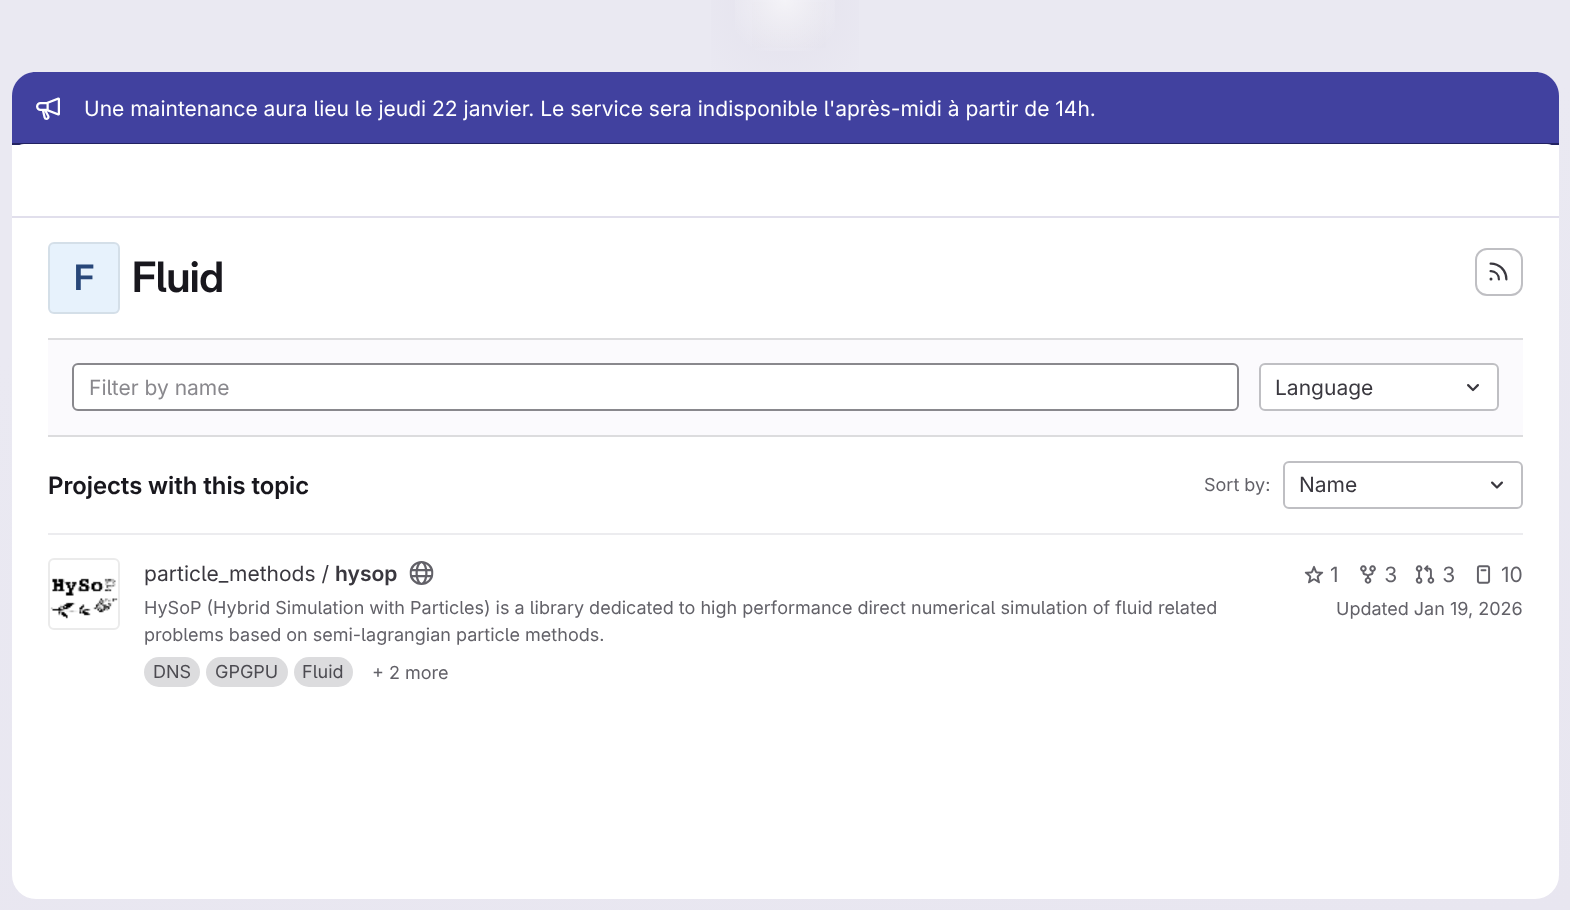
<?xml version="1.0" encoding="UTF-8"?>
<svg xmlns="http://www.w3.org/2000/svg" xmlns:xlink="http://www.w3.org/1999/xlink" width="1570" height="910">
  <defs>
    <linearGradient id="g1" gradientUnits="userSpaceOnUse" x1="887" y1="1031" x2="684" y2="-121"><stop offset="0" stop-color="#e8e6f0" /><stop offset="0.7" stop-color="#eae9f2" /></linearGradient>
    <radialGradient id="g2" gradientUnits="userSpaceOnUse" cx="0" cy="0" r="1" gradientTransform="matrix(785 0 0 911 785 0)"><stop offset="0" stop-color="#e4e2ed" /><stop offset="0.13" stop-color="#e4e2ed" stop-opacity="0" /></radialGradient>
    <radialGradient id="g3" gradientUnits="userSpaceOnUse" cx="0" cy="0" r="1" gradientTransform="matrix(785 0 0 911 785 0)"><stop offset="0" stop-color="#e4e2ec" /><stop offset="0.1" stop-color="#e4e2ec" stop-opacity="0" /></radialGradient>
    <radialGradient id="g4" gradientUnits="userSpaceOnUse" cx="785" cy="0" r="1202"><stop offset="0" stop-color="#ffffff" stop-opacity="0.6" /><stop offset="0.05" stop-color="#ffffff" stop-opacity="0" /></radialGradient>
  </defs>
  <rect width="100%" height="100%" fill="#ffffff" />
  <rect width="1570" height="910" fill="url(#g1)" />
  <rect x="711" width="148" height="72" fill="url(#g2)" />
  <rect x="752" y="2" width="74" height="46" fill="url(#g3)" />
  <rect x="735" width="100" height="51" fill="url(#g4)" />
  <rect x="12" y="72" width="1547" height="827" rx="24" fill="#ffffff" />
  <path d="M 36 72 h 1499 c 13.5 0 24 10.5 24 24 v 48 h -1547 v -48 c 0 -13.5 10.5 -24 24 -24 z" fill="#41419f" />
  <rect x="12" y="143" width="1547" height="2" fill="#222261" />
  <image x="36" y="97" width="24" height="23" xlink:href="image1.png" />
  <path d="M 24 144 h 1523 c 6.5 0 12 5.5 12 12 v 62 h -1547 v -62 c 0 -6.5 5.5 -12 12 -12 z" fill="#ffffff" />
  <rect x="12" y="216" width="1547" height="2" fill="#e1dfec" />
  <rect x="48" y="242" width="72" height="72" rx="6" fill="#e7f2fc" />
  <rect x="49" y="243" width="70" height="70" rx="5" fill="none" stroke="#050506" stroke-opacity="0.08" stroke-width="2" />
  <rect x="1476" y="249" width="46" height="46" rx="11" fill="none" stroke="#bfbfc3" stroke-width="2" />
  <image x="1489" y="262" width="19" height="19" xlink:href="image2.png" />
  <rect x="48" y="340" width="1475" height="95" fill="#fbfafd" />
  <rect x="48" y="338" width="1475" height="2" fill="#dcdcde" />
  <rect x="48" y="435" width="1475" height="2" fill="#dcdcde" />
  <rect x="73" y="364" width="1165" height="46" rx="5" fill="#ffffff" stroke="#89888d" stroke-width="2" />
  <rect x="1260" y="364" width="238" height="46" rx="5" fill="#ffffff" stroke="#bfbfc3" stroke-width="2" />
  <image x="1467" y="384" width="12" height="8" xlink:href="image3.png" />
  <rect x="48" y="533" width="1475" height="2" fill="#ececef" />
  <rect x="1284" y="462" width="238" height="46" rx="5" fill="none" stroke="#bfbfc3" stroke-width="2" />
  <image x="1491" y="481" width="12" height="8" xlink:href="image4.png" />
  <image x="50" y="578" width="68" height="41" xlink:href="image5.png" />
  <rect x="49" y="559" width="70" height="70" rx="5" fill="none" stroke="#ebebeb" stroke-width="2" />
  <image x="409" y="561" width="25" height="24" xlink:href="image6.png" />
  <rect x="144" y="657" width="56" height="30" rx="15" fill="#dcdcde" />
  <rect x="206" y="657" width="82" height="30" rx="15" fill="#dcdcde" />
  <rect x="294" y="657" width="59" height="30" rx="15" fill="#dcdcde" />
  <image x="1304" y="565" width="20" height="19" xlink:href="image7.png" />
  <image x="1360" y="565" width="16" height="19" xlink:href="image8.png" />
  <image x="1415" y="565" width="20" height="19" xlink:href="image9.png" />
  <image x="1476" y="565" width="15" height="19" xlink:href="image10.png" />
  <text x="84" y="116" style="font-family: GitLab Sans; font-size: 21px; fill: #ffffff">Une maintenance aura lieu le jeudi 22 janvier. Le service sera indisponible l'après-midi à partir de 14h.</text>
  <text x="74" y="290" style="font-family: GitLab Sans; font-size: 35px; font-weight: 600; letter-spacing: -0.5px; fill: #284779">F</text>
  <text x="132" y="292" style="font-family: GitLab Sans; font-size: 42px; font-weight: 600; letter-spacing: -0.5px; fill: #18171d">Fluid</text>
  <text x="89" y="395" style="font-family: GitLab Sans; font-size: 21px; fill: #89888d">Filter by name</text>
  <text x="1275" y="395" style="font-family: GitLab Sans; font-size: 21px; fill: #3a383f">Language</text>
  <text x="48" y="494" style="font-family: 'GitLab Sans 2'; font-size: 24px; font-weight: 600; fill: #18171d">Projects with this topic</text>
  <text x="1204" y="491" style="font-family: GitLab Sans; font-size: 18px; fill: #626168">Sort by:</text>
  <text x="1299" y="492" style="font-family: GitLab Sans; font-size: 21px; fill: #3a383f">Name</text>
  <text x="144" y="581" style="font-family: GitLab Sans; font-size: 21px; fill: #3a383f">particle_methods /</text>
  <text x="335" y="581" style="font-family: 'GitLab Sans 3'; font-size: 21px; font-weight: 600; fill: #3a383f">hysop</text>
  <text x="144" y="614" style="font-family: GitLab Sans; font-size: 18px; fill: #626168">HySoP (Hybrid Simulation with Particles) is a library dedicated to high performance direct numerical simulation of fluid related</text>
  <text x="144" y="641" style="font-family: GitLab Sans; font-size: 18px; fill: #626168">problems based on semi-lagrangian particle methods.</text>
  <text x="153" y="678" style="font-family: GitLab Sans; font-size: 18px; fill: #4c4b51">DNS</text>
  <text x="215" y="678" style="font-family: GitLab Sans; font-size: 18px; fill: #4c4b51">GPGPU</text>
  <text x="302" y="678" style="font-family: GitLab Sans; font-size: 18px; fill: #4c4b51">Fluid</text>
  <text x="372" y="679" style="font-family: GitLab Sans; font-size: 18px; fill: #626168">+ 2 more</text>
  <text x="1330" y="582" style="font-family: GitLab Sans; font-size: 21px; fill: #626168">1</text>
  <text x="1384" y="582" style="font-family: GitLab Sans; font-size: 21px; fill: #626168">3</text>
  <text x="1442" y="582" style="font-family: GitLab Sans; font-size: 21px; fill: #626168">3</text>
  <text x="1501" y="582" style="font-family: GitLab Sans; font-size: 21px; fill: #626168">10</text>
  <text x="1336" y="615" style="font-family: GitLab Sans; font-size: 18px; fill: #626168">Updated Jan 19, 2026</text>
</svg>
